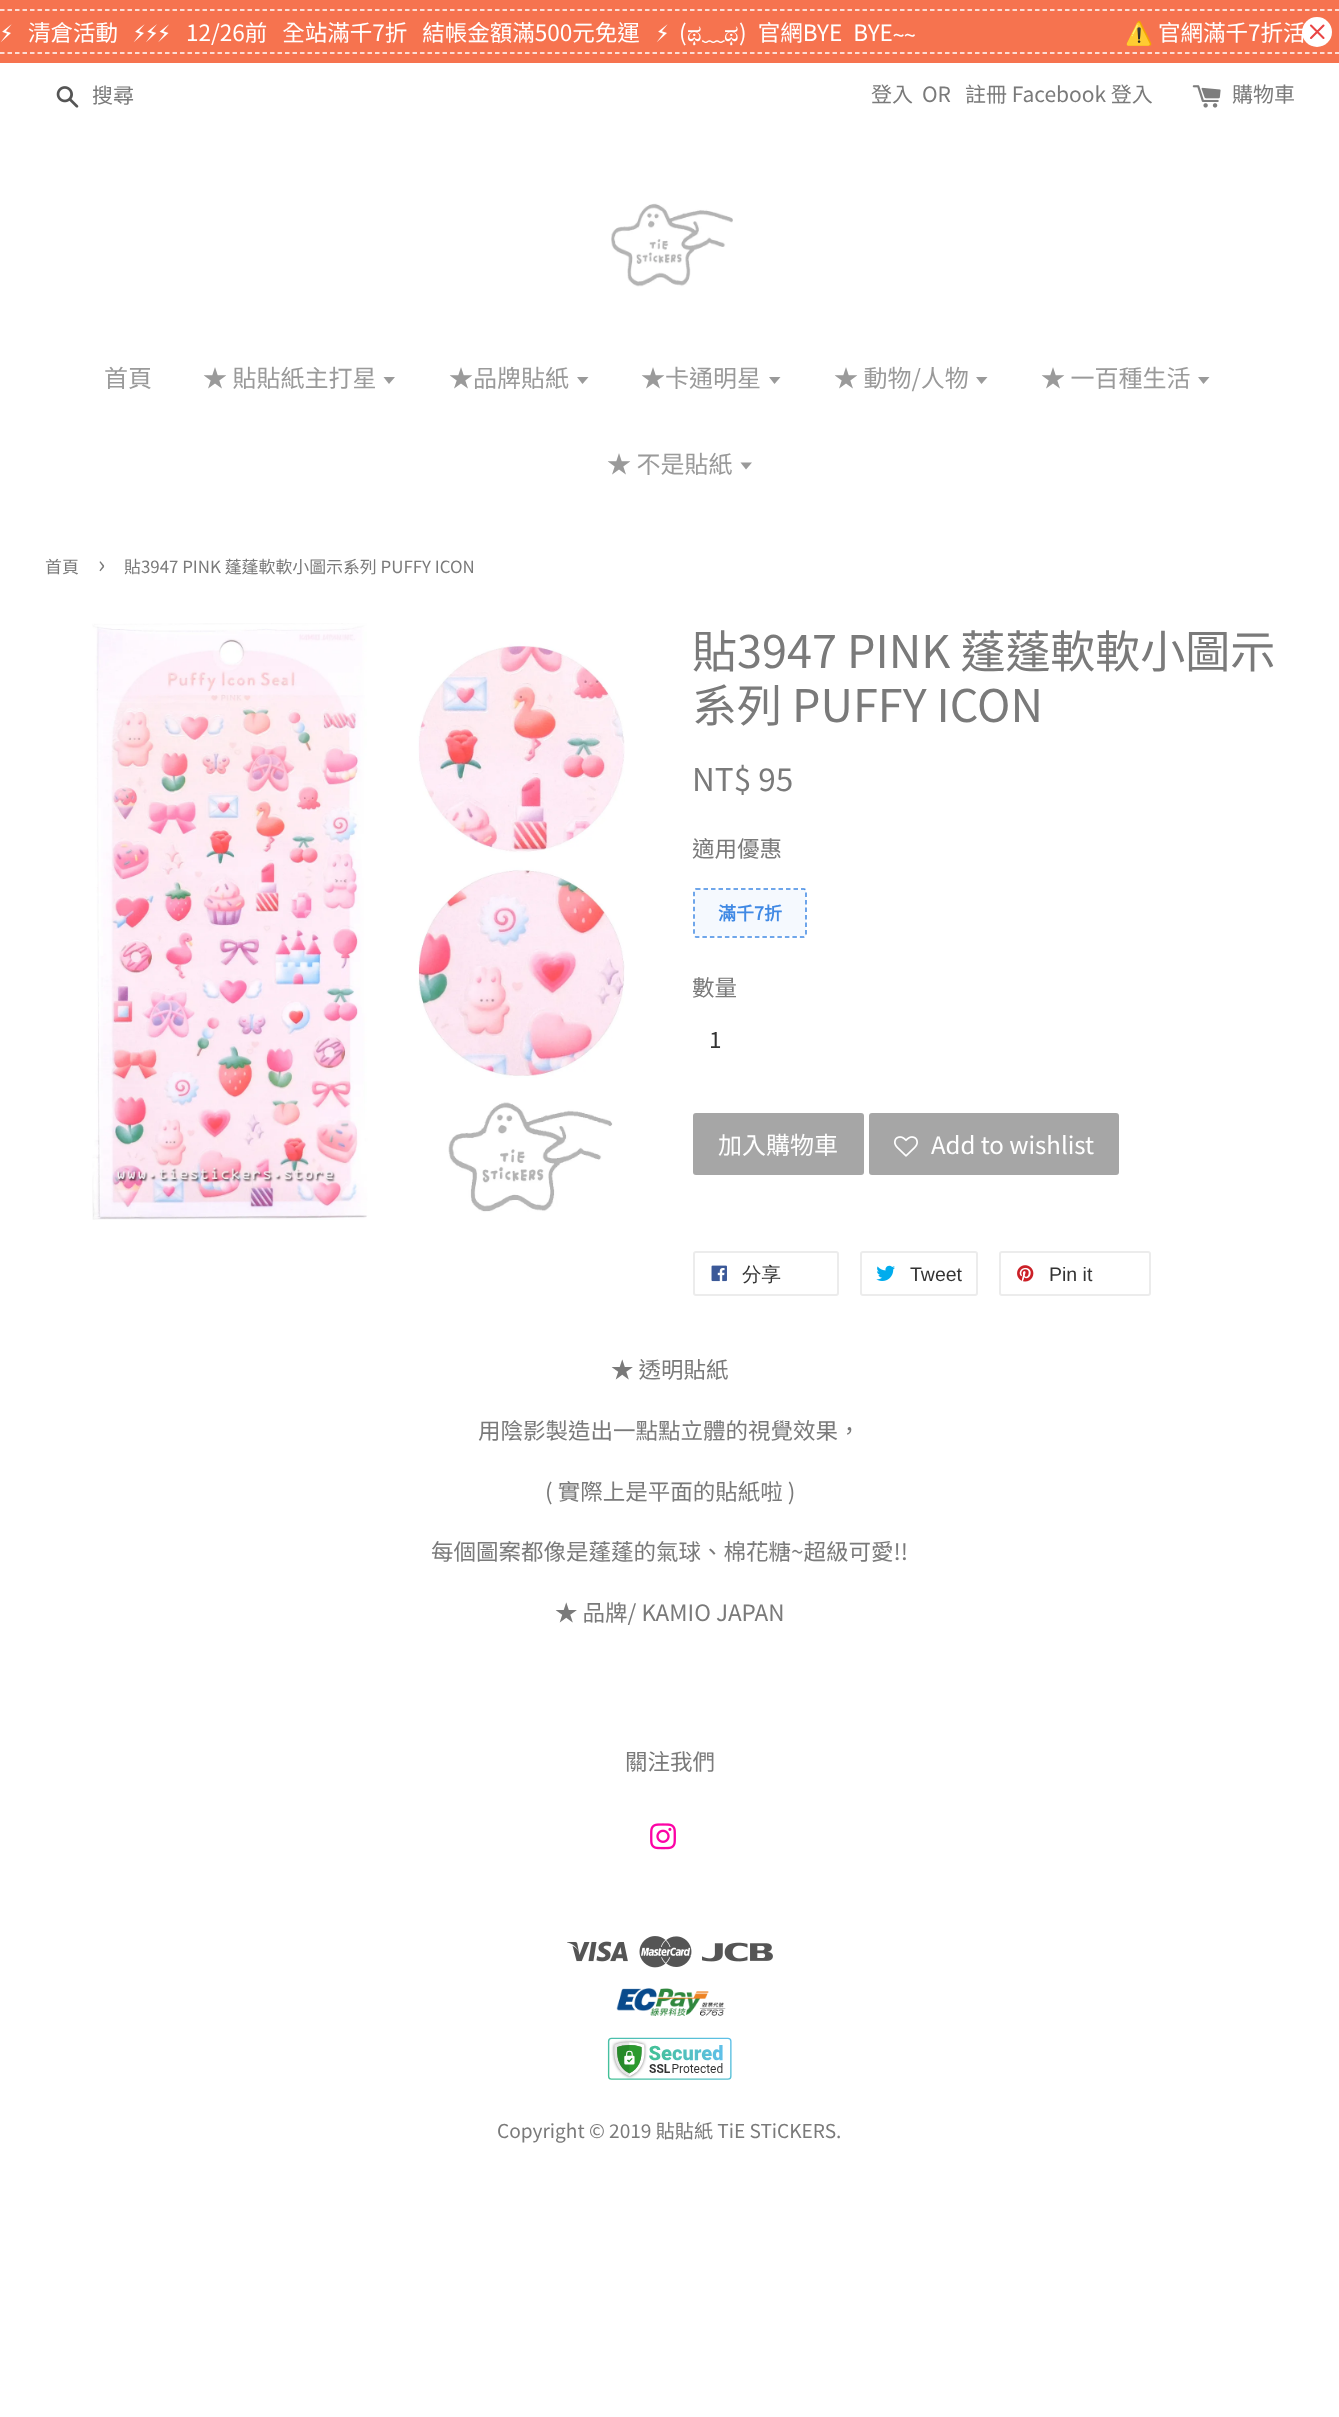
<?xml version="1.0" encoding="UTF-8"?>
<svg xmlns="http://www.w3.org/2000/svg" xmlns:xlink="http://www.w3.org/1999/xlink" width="1339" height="2417">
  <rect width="100%" height="100%" fill="#ffffff" />
  <rect width="1339" height="63" fill="#f6734f" />
  <path d="M 0 10 h 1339.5" fill="none" stroke="#ffffff" stroke-width="1.5" stroke-dasharray="4.5 3" />
  <path d="M 0 53 h 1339.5" fill="none" stroke="#ffffff" stroke-width="1.5" stroke-dasharray="4.5 3" />
  <circle cx="1317" cy="32" r="15" fill="#ffffff" />
  <path d="M 1323.5 25.5 l -12.5 12.5 m 0 -12.5 l 12.5 12.5" fill="none" stroke="#e94545" stroke-width="2.1" stroke-linecap="round" stroke-linejoin="round" />
  <image x="56" y="86" width="23" height="22" xlink:href="image1.png" />
  <image x="1192" y="85" width="29" height="23" xlink:href="image2.png" />
  <image x="611" y="203" width="122" height="84" xlink:href="image3.png" />
  <path d="M 383.5 377 l 5.5 7 l 6 -7 z" fill="#9a9a9a" />
  <path d="M 577 377 l 5.5 7 l 6 -7 z" fill="#9a9a9a" />
  <path d="M 769 377 l 5.5 7 l 6 -7 z" fill="#9a9a9a" />
  <path d="M 976 377 l 5.5 7 l 6 -7 z" fill="#9a9a9a" />
  <path d="M 1198 377 l 5.5 7 l 6 -7 z" fill="#9a9a9a" />
  <path d="M 740.5 462.5 l 5.5 7 l 6 -7 z" fill="#9a9a9a" />
  <image x="92" y="623" width="533" height="597" xlink:href="image4.png" />
  <path d="M 696 889 h 108 c 1 0 2 1 2 2 v 43.5 c 0 1 -1 2.5 -2 2.5 h -108 c -1 0 -2 -1.5 -2 -2.5 v -43.5 c 0 -1 1 -2 2 -2 z" fill="none" stroke="#4089e4" stroke-width="1.5" stroke-dasharray="4.5 3" />
  <rect x="695" y="890" width="111" height="46" fill="#4089e4" fill-opacity="0.05" />
  <rect x="693" y="1113" width="171" height="62" rx="3" fill="#a6a6a6" />
  <rect x="869" y="1113" width="250" height="62" rx="3" fill="#a6a6a6" />
  <image x="894" y="1136" width="24" height="21" xlink:href="image5.png" />
  <rect x="694" y="1252" width="144" height="43" rx="2" fill="none" stroke="#ececec" stroke-width="2" />
  <image x="711" y="1265" width="16" height="17" xlink:href="image6.png" />
  <rect x="861" y="1252" width="116" height="43" rx="2" fill="none" stroke="#ececec" stroke-width="2" />
  <image x="876" y="1265" width="19" height="16" xlink:href="image7.png" />
  <rect x="1000" y="1252" width="150" height="43" rx="2" fill="none" stroke="#ececec" stroke-width="2" />
  <image x="1017" y="1265" width="17" height="17" xlink:href="image8.png" />
  <image x="650" y="1823" width="26" height="27" xlink:href="image9.png" />
  <image x="567" y="1941" width="61" height="21" xlink:href="image10.png" />
  <image x="639" y="1936" width="53" height="32" xlink:href="image11.png" />
  <image x="702" y="1942" width="71" height="20" xlink:href="image12.png" />
  <image x="616" y="1988" width="110" height="28" xlink:href="image13.png" />
  <image x="607" y="2037" width="125" height="43" xlink:href="image14.png" />
  <text x="0" y="41" style="font-family: FreeSerif; font-size: 22.5px; fill: #ffffff">⚡</text>
  <text x="28" y="41" style="font-family: Noto Sans TC; font-size: 22.5px; font-weight: 100; fill: #ffffff">清倉活動</text>
  <text x="133" y="41" style="font-family: FreeSerif; font-size: 22.5px; fill: #ffffff">⚡⚡⚡</text>
  <text x="186" y="41" word-spacing="10" style="font-family: Noto Sans TC; font-size: 22.5px; font-weight: 100; fill: #ffffff">12/26前 全站滿千7折 結帳金額滿500元免運</text>
  <text x="656" y="41" style="font-family: FreeSerif; font-size: 22.5px; fill: #ffffff">⚡</text>
  <text x="679" y="41" style="font-family: Noto Sans TC; font-size: 22.5px; font-weight: 100; fill: #ffffff">(</text>
  <text x="687" y="41" style="font-family: FreeSerif; font-size: 22.5px; fill: #ffffff">ಥ</text>
  <text x="724" y="41" style="font-family: FreeSerif; font-size: 22.5px; fill: #ffffff">ಥ</text>
  <text x="739" y="41" word-spacing="6" style="font-family: Noto Sans TC; font-size: 22.5px; font-weight: 100; fill: #ffffff">) 官網BYE BYE</text>
  <text x="893" y="41" style="font-family: FreeSerif; font-size: 22.5px; fill: #ffffff">~~</text>
  <text x="702" y="41" style="font-family: Noto Sans TC; font-size: 22.5px; font-weight: 100; fill: #ffffff">﹏</text>
  <text x="1125" y="41" style="font-family: Noto Color Emoji; font-size: 22.5px; fill: #ffffff">⚠️</text>
  <text x="1158" y="41" style="font-family: Noto Sans TC; font-size: 22.5px; font-weight: 100; fill: #ffffff">官網滿千7折活</text>
  <text x="92" y="103" style="font-family: Noto Sans TC; font-size: 21px; font-weight: 100; fill: #7a7a7a">搜尋</text>
  <text x="871" y="102" style="font-family: Noto Sans TC; font-size: 21px; font-weight: 100; fill: #7a7a7a">登入</text>
  <text x="922" y="102" style="font-family: Noto Sans TC; font-size: 21px; font-weight: 100; fill: #7a7a7a">OR</text>
  <text x="965" y="102" style="font-family: Noto Sans TC; font-size: 21px; font-weight: 100; fill: #7a7a7a">註冊 Facebook 登入</text>
  <text x="1232" y="102" style="font-family: Noto Sans TC; font-size: 21px; font-weight: 100; fill: #7a7a7a">購物車</text>
  <text x="104" y="387" style="font-family: Noto Sans TC; font-size: 24px; font-weight: 100; fill: #9a9a9a">首頁</text>
  <text x="203" y="387" style="font-family: Noto Sans TC; font-size: 24px; font-weight: 100; fill: #9a9a9a">★ 貼貼紙主打星</text>
  <text x="449" y="387" style="font-family: Noto Sans TC; font-size: 24px; font-weight: 100; fill: #9a9a9a">★品牌貼紙</text>
  <text x="641" y="387" style="font-family: Noto Sans TC; font-size: 24px; font-weight: 100; fill: #9a9a9a">★卡通明星</text>
  <text x="834" y="387" style="font-family: Noto Sans TC; font-size: 24px; font-weight: 100; fill: #9a9a9a">★ 動物/人物</text>
  <text x="1041" y="387" style="font-family: Noto Sans TC; font-size: 24px; font-weight: 100; fill: #9a9a9a">★ 一百種生活</text>
  <text x="607" y="473" style="font-family: Noto Sans TC; font-size: 24px; font-weight: 100; fill: #9a9a9a">★ 不是貼紙</text>
  <text x="45" y="573" style="font-family: Noto Sans TC; font-size: 16.9px; font-weight: 100; fill: #7a7a7a">首頁</text>
  <text x="98" y="573" style="font-family: Noto Sans TC; font-size: 24px; font-weight: 100; fill: #7a7a7a">›</text>
  <text x="124" y="573" style="font-family: Noto Sans TC; font-size: 16.9px; font-weight: 100; fill: #7a7a7a">貼3947 PINK 蓬蓬軟軟小圖示系列 PUFFY ICON</text>
  <text x="692" y="668" style="font-family: Noto Sans TC; font-size: 45px; font-weight: 100; fill: #7a7a7a">貼3947 PINK 蓬蓬軟軟小圖示</text>
  <text x="692" y="722" style="font-family: Noto Sans TC; font-size: 45px; font-weight: 100; fill: #7a7a7a">系列 PUFFY ICON</text>
  <text x="692" y="791" style="font-family: Noto Sans TC; font-size: 31.5px; font-weight: 100; fill: #7a7a7a">NT$ 95</text>
  <text x="692" y="857" style="font-family: Noto Sans TC; font-size: 22.5px; font-weight: 100; fill: #7a7a7a">適用優惠</text>
  <text x="718" y="920" style="font-family: Noto Sans TC; font-size: 18px; font-weight: bold; fill: #4089e4">滿千7折</text>
  <text x="692" y="996" style="font-family: Noto Sans TC; font-size: 22.5px; font-weight: 100; fill: #7a7a7a">數量</text>
  <text x="709" y="1048" style="font-family: Noto Sans TC; font-size: 22.5px; font-weight: 100; fill: #333333">1</text>
  <text x="718" y="1154" style="font-family: Noto Sans TC; font-size: 24px; font-weight: 100; fill: #ffffff">加入購物車</text>
  <text x="931" y="1154" style="font-family: Noto Sans TC; font-size: 24px; font-weight: 100; fill: #ffffff">Add to wishlist</text>
  <text x="742" y="1281" style="font-family: WenQuanYi Zen Hei; font-size: 19.5px; font-weight: 500; fill: #333333">分享</text>
  <text x="910" y="1281" style="font-family: Liberation Sans; font-size: 19.5px; fill: #333333">Tweet</text>
  <text x="1049" y="1281" style="font-family: Liberation Sans; font-size: 19.5px; fill: #333333">Pin it</text>
  <text x="611" y="1378" style="font-family: Noto Sans TC; font-size: 22.5px; font-weight: 100; fill: #7a7a7a">★ 透明貼紙</text>
  <text x="478" y="1439" style="font-family: Noto Sans TC; font-size: 22.5px; font-weight: 100; fill: #7a7a7a">用陰影製造出一點點立體的視覺效果，</text>
  <text x="545" y="1500" style="font-family: Noto Sans TC; font-size: 22.5px; font-weight: 100; fill: #7a7a7a">( 實際上是平面的貼紙啦 )</text>
  <text x="431" y="1560" style="font-family: Noto Sans TC; font-size: 22.5px; font-weight: 100; fill: #7a7a7a">每個圖案都像是蓬蓬的氣球、棉花糖~超級可愛!!</text>
  <text x="555" y="1621" style="font-family: Noto Sans TC; font-size: 22.5px; font-weight: 100; fill: #7a7a7a">★ 品牌/ KAMIO JAPAN</text>
  <text x="625" y="1770" style="font-family: Noto Sans TC; font-size: 22.5px; font-weight: 100; fill: #7a7a7a">關注我們</text>
  <text x="497" y="2138" style="font-family: Noto Sans TC; font-size: 19.1px; font-weight: 100; fill: #7a7a7a">Copyright © 2019 貼貼紙 TiE STiCKERS.</text>
</svg>
